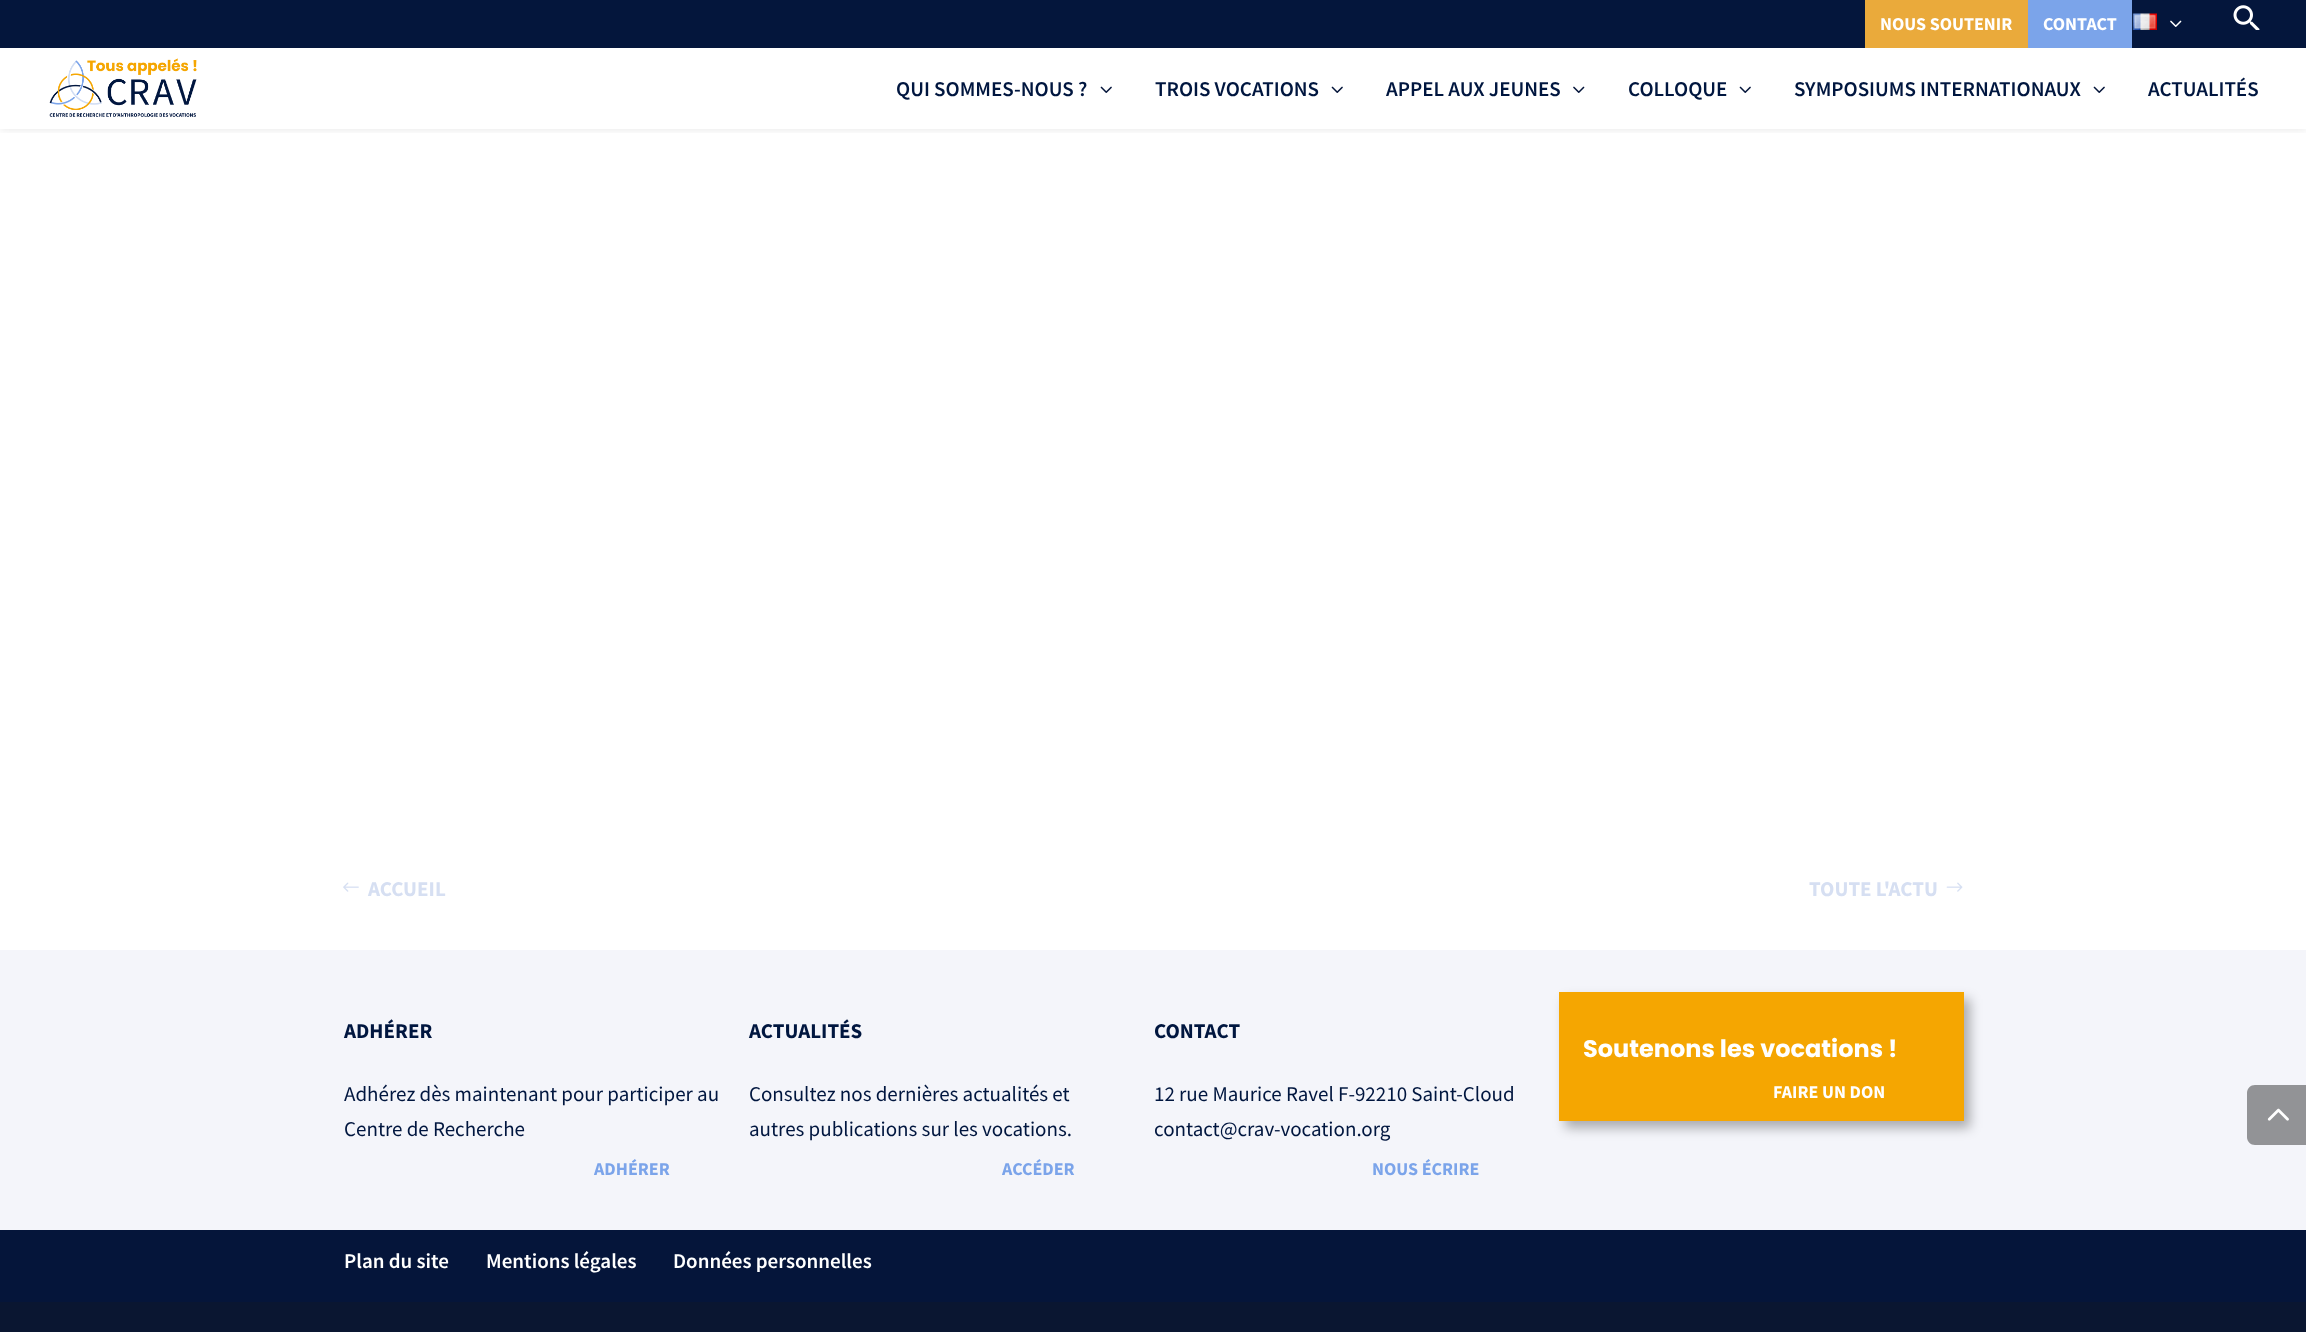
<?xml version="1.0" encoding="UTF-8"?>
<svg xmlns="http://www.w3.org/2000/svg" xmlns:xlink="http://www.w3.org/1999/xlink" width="2306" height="1332">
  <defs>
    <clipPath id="clip1"><rect x="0" y="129" width="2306" height="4" /></clipPath>
  </defs>
  <rect width="100%" height="100%" fill="#ffffff" />
  <g clip-path="url(#clip1)">
    <rect y="48" width="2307" height="81" fill="#000000" fill-opacity="0.1" filter="blur(5px)" />
  </g>
  <rect width="2306" height="48" fill="#04163c" />
  <rect x="1865" width="163" height="48" fill="#eaaa3b" />
  <rect x="2028" width="104" height="48" fill="#7ba4ea" />
  <image x="2132" y="13" width="25" height="17" xlink:href="image1.png" />
  <image x="2170" y="20" width="12" height="7" xlink:href="image2.png" />
  <image x="2233" y="5" width="27" height="25" xlink:href="image3.png" />
  <image x="49" y="58" width="148" height="59" xlink:href="image4.png" />
  <image x="1100" y="86" width="12" height="7" xlink:href="image5.png" />
  <image x="1331" y="86" width="12" height="7" xlink:href="image5.png" />
  <image x="1573" y="86" width="12" height="7" xlink:href="image6.png" />
  <image x="1739" y="86" width="12" height="7" xlink:href="image5.png" />
  <image x="2093" y="86" width="12" height="7" xlink:href="image5.png" />
  <image x="343" y="882" width="16" height="10" xlink:href="image7.png" />
  <image x="1946" y="882" width="17" height="10" xlink:href="image8.png" />
  <rect y="950" width="2306" height="280" fill="#f4f5fa" />
  <rect x="1565" y="999" width="405" height="129" fill="#000000" fill-opacity="0.3" filter="blur(6px)" />
  <rect x="1559" y="992" width="405" height="129" fill="#f5a601" />
  <path d="M 2255 1085 h 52 v 60 h -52 c -4.5 0 -8 -3.5 -8 -8 v -44 c 0 -4.5 3.5 -8 8 -8 z" fill="#929396" />
  <image x="2267" y="1108" width="22" height="13" xlink:href="image9.png" />
  <rect y="1230" width="2306" height="72" fill="#05153a" />
  <rect y="1302" width="2306" height="30" fill="#0a1631" />
  <text x="1880" y="30" style="font-family: Source Sans Pro; font-size: 18px; font-weight: bold; fill: #ffffff">NOUS SOUTENIR</text>
  <text x="2043" y="30" style="font-family: Source Sans Pro; font-size: 18px; font-weight: bold; fill: #ffffff">CONTACT</text>
  <text x="896" y="96" style="font-family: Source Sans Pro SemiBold; font-size: 21px; font-weight: 600; fill: #00163f">QUI SOMMES-NOUS ?</text>
  <text x="1155" y="96" style="font-family: Source Sans Pro SemiBold; font-size: 21px; font-weight: 600; fill: #00163f">TROIS VOCATIONS</text>
  <text x="1386" y="96" style="font-family: Source Sans Pro SemiBold; font-size: 21px; font-weight: 600; fill: #00163f">APPEL AUX JEUNES</text>
  <text x="1628" y="96" style="font-family: Source Sans Pro SemiBold; font-size: 21px; font-weight: 600; fill: #00163f">COLLOQUE</text>
  <text x="1794" y="96" style="font-family: Source Sans Pro SemiBold; font-size: 21px; font-weight: 600; fill: #00163f">SYMPOSIUMS INTERNATIONAUX</text>
  <text x="2148" y="96" style="font-family: Source Sans Pro SemiBold; font-size: 21px; font-weight: 600; fill: #00163f">ACTUALITÉS</text>
  <text x="368" y="896" style="font-family: Source Sans Pro; font-size: 21px; font-weight: bold; fill: #d6dff2">ACCUEIL</text>
  <text x="1809" y="896" style="font-family: Source Sans Pro; font-size: 21px; font-weight: bold; fill: #d6dff2">TOUTE L'ACTU</text>
  <text x="344" y="1038" style="font-family: Source Sans Pro; font-size: 21px; font-weight: bold; fill: #00163f">ADHÉRER</text>
  <text x="344" y="1101" style="font-family: Source Sans Pro; font-size: 21px; fill: #00163f">Adhérez dès maintenant pour participer au</text>
  <text x="344" y="1136" style="font-family: Source Sans Pro; font-size: 21px; fill: #00163f">Centre de Recherche</text>
  <text x="594" y="1175" style="font-family: Source Sans Pro; font-size: 18px; font-weight: bold; fill: #7ba4ea">ADHÉRER</text>
  <text x="749" y="1038" style="font-family: Source Sans Pro; font-size: 21px; font-weight: bold; fill: #00163f">ACTUALITÉS</text>
  <text x="749" y="1101" style="font-family: Source Sans Pro; font-size: 21px; fill: #00163f">Consultez nos dernières actualités et</text>
  <text x="749" y="1136" style="font-family: Source Sans Pro; font-size: 21px; fill: #00163f">autres publications sur les vocations.</text>
  <text x="1002" y="1175" style="font-family: Source Sans Pro; font-size: 18px; font-weight: bold; fill: #7ba4ea">ACCÉDER</text>
  <text x="1154" y="1038" style="font-family: Source Sans Pro; font-size: 21px; font-weight: bold; fill: #00163f">CONTACT</text>
  <text x="1154" y="1101" style="font-family: Source Sans Pro; font-size: 21px; fill: #00163f">12 rue Maurice Ravel F-92210 Saint-Cloud</text>
  <text x="1154" y="1136" style="font-family: Source Sans Pro; font-size: 21px; fill: #00163f">contact@crav-vocation.org</text>
  <text x="1372" y="1175" style="font-family: Source Sans Pro; font-size: 18px; font-weight: bold; fill: #7ba4ea">NOUS ÉCRIRE</text>
  <text x="1583" y="1057" style="font-family: Poppins; font-size: 24px; font-weight: bold; fill: #ffffff">Soutenons les vocations !</text>
  <text x="1773" y="1098" style="font-family: Source Sans Pro; font-size: 18px; font-weight: bold; fill: #ffffff">FAIRE UN DON</text>
  <text x="344" y="1268" style="font-family: Source Sans Pro SemiBold; font-size: 21px; font-weight: 600; fill: #ffffff">Plan du site</text>
  <text x="486" y="1268" style="font-family: Source Sans Pro SemiBold; font-size: 21px; font-weight: 600; fill: #ffffff">Mentions légales</text>
  <text x="673" y="1268" style="font-family: Source Sans Pro SemiBold; font-size: 21px; font-weight: 600; fill: #ffffff">Données personnelles</text>
</svg>
